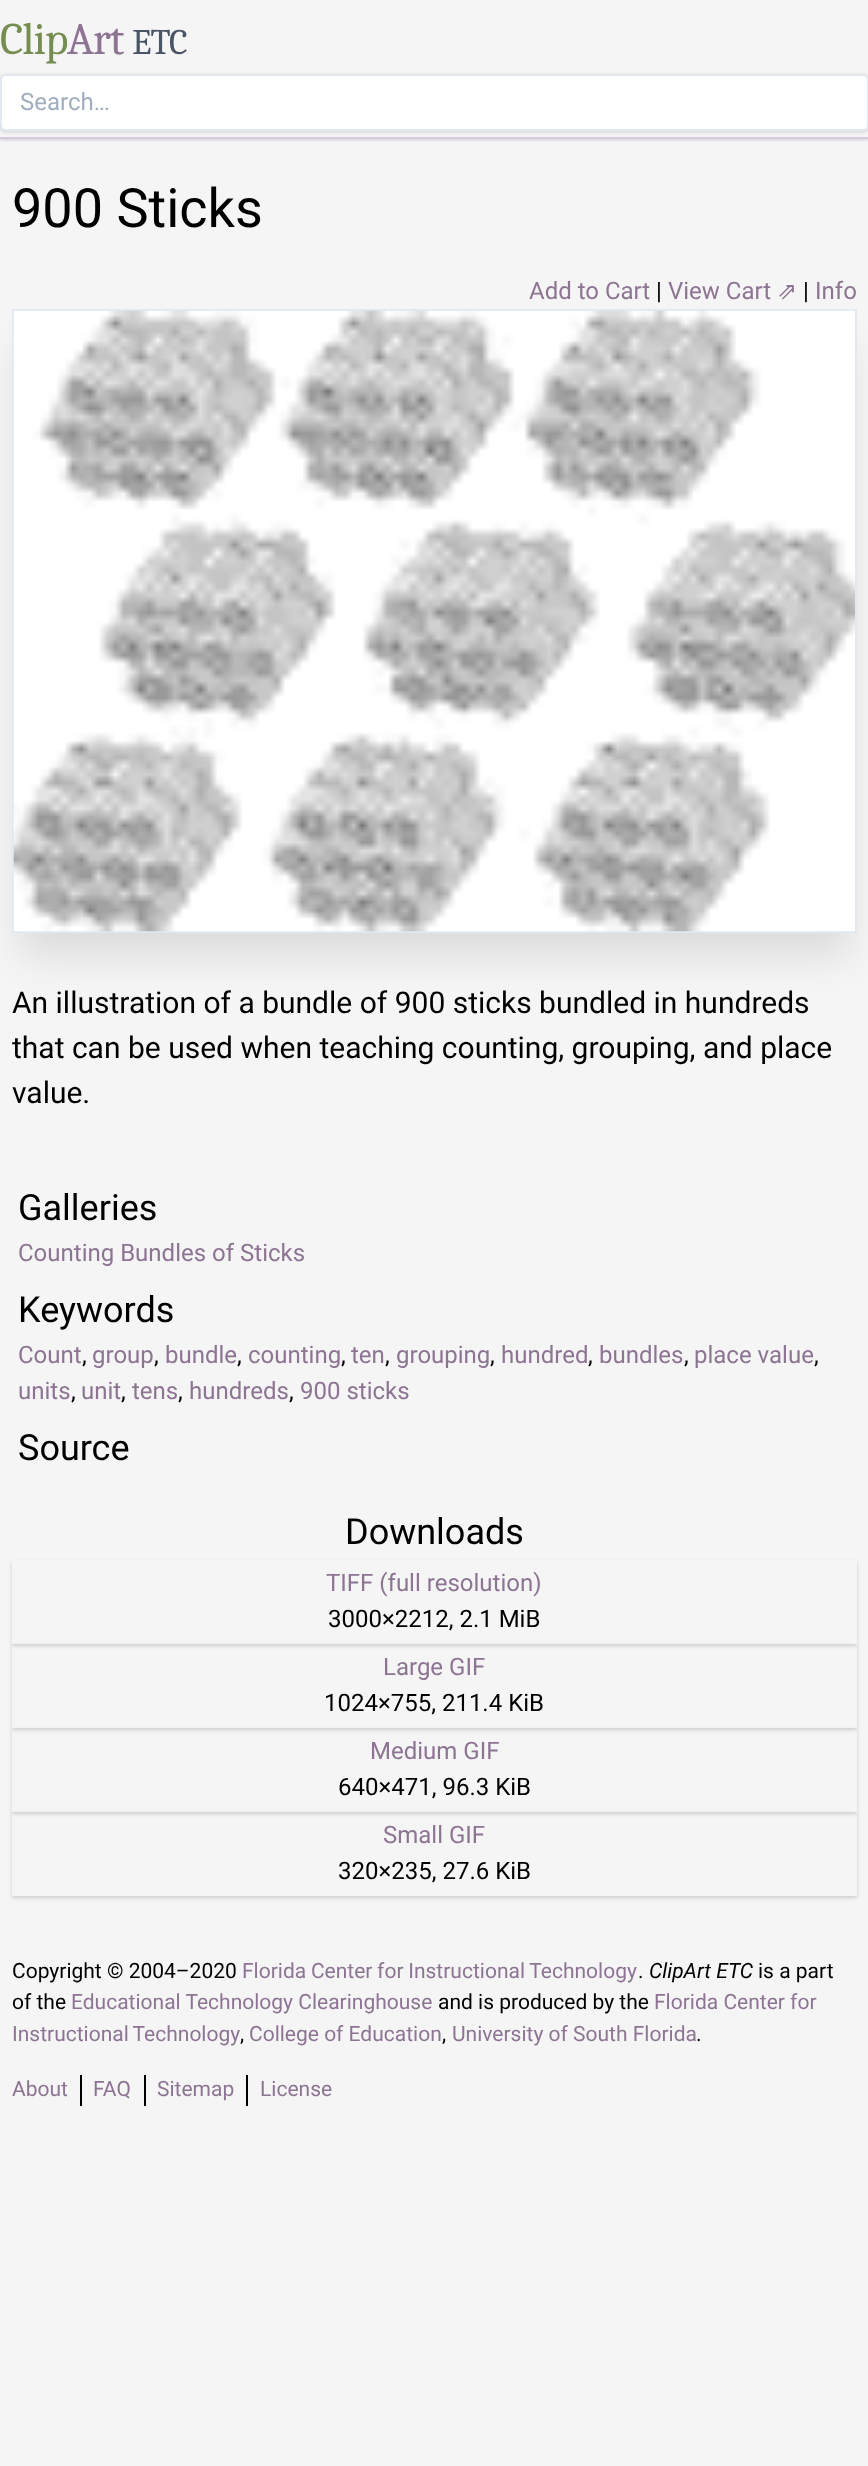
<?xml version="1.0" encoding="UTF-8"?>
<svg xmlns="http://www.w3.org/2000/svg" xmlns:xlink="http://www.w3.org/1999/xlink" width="868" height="2466">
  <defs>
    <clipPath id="clip1"><rect x="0" y="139" width="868" height="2" /></clipPath>
    <clipPath id="clip2"><rect x="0" y="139" width="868" height="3" /></clipPath>
    <clipPath id="clip3"><path d="M 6 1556 h 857 v 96 h -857 z m 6 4 h 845 v 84 h -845 z" clip-rule="evenodd" /></clipPath>
    <clipPath id="clip4"><path d="M 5 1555 h 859 v 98 h -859 z m 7 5 h 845 v 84 h -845 z" clip-rule="evenodd" /></clipPath>
    <clipPath id="clip5"><path d="M 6 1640 h 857 v 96 h -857 z m 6 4 h 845 v 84 h -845 z" clip-rule="evenodd" /></clipPath>
    <clipPath id="clip6"><path d="M 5 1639 h 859 v 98 h -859 z m 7 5 h 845 v 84 h -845 z" clip-rule="evenodd" /></clipPath>
    <clipPath id="clip7"><path d="M 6 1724 h 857 v 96 h -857 z m 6 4 h 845 v 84 h -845 z" clip-rule="evenodd" /></clipPath>
    <clipPath id="clip8"><path d="M 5 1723 h 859 v 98 h -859 z m 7 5 h 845 v 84 h -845 z" clip-rule="evenodd" /></clipPath>
    <clipPath id="clip9"><path d="M 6 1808 h 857 v 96 h -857 z m 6 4 h 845 v 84 h -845 z" clip-rule="evenodd" /></clipPath>
    <clipPath id="clip10"><path d="M 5 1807 h 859 v 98 h -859 z m 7 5 h 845 v 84 h -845 z" clip-rule="evenodd" /></clipPath>
  </defs>
  <rect width="100%" height="100%" fill="#f5f5f5" />
  <g clip-path="url(#clip1)">
    <rect y="2" width="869" height="138" fill="#000000" fill-opacity="0.06" filter="blur(1.5px)" />
  </g>
  <g clip-path="url(#clip2)">
    <rect y="2" width="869" height="138" fill="#000000" fill-opacity="0.1" filter="blur(2px)" />
  </g>
  <rect y="137" width="868" height="2" fill="#dbc8e0" />
  <rect y="75" width="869" height="57" rx="6" fill="#000000" fill-opacity="0.06" filter="blur(1.5px)" />
  <rect y="75" width="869" height="57" rx="6" fill="#000000" fill-opacity="0.1" filter="blur(2px)" />
  <rect x="1" y="75" width="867" height="55" rx="5" fill="#ffffff" stroke="#e2e8f0" stroke-width="2" />
  <rect x="20" y="347" width="829" height="609" fill="#000000" fill-opacity="0.1" filter="blur(19px)" />
  <rect x="13" y="310" width="843" height="622" fill="none" stroke="#e2e8f0" stroke-width="2" />
  <image x="13" y="310" width="842" height="622" xlink:href="image1.png" />
  <g clip-path="url(#clip3)">
    <rect x="12" y="1562" width="845" height="84" fill="#000000" fill-opacity="0.06" filter="blur(1.5px)" />
  </g>
  <g clip-path="url(#clip4)">
    <rect x="12" y="1562" width="845" height="84" fill="#000000" fill-opacity="0.1" filter="blur(2px)" />
  </g>
  <g clip-path="url(#clip5)">
    <rect x="12" y="1646" width="845" height="84" fill="#000000" fill-opacity="0.06" filter="blur(1.5px)" />
  </g>
  <g clip-path="url(#clip6)">
    <rect x="12" y="1646" width="845" height="84" fill="#000000" fill-opacity="0.1" filter="blur(2px)" />
  </g>
  <g clip-path="url(#clip7)">
    <rect x="12" y="1730" width="845" height="84" fill="#000000" fill-opacity="0.06" filter="blur(1.5px)" />
  </g>
  <g clip-path="url(#clip8)">
    <rect x="12" y="1730" width="845" height="84" fill="#000000" fill-opacity="0.1" filter="blur(2px)" />
  </g>
  <g clip-path="url(#clip9)">
    <rect x="12" y="1814" width="845" height="84" fill="#000000" fill-opacity="0.06" filter="blur(1.5px)" />
  </g>
  <g clip-path="url(#clip10)">
    <rect x="12" y="1814" width="845" height="84" fill="#000000" fill-opacity="0.1" filter="blur(2px)" />
  </g>
  <rect x="80" y="2075" width="2" height="31" fill="#000000" />
  <rect x="144" y="2075" width="2" height="31" fill="#000000" />
  <rect x="246" y="2075" width="2" height="31" fill="#000000" />
  <text x="0" y="54" style="font-family: Caladea; font-size: 45px; letter-spacing: -1px; fill: #758d50">Clip</text>
  <text x="67" y="54" style="font-family: Caladea; font-size: 45px; letter-spacing: -1px; fill: #8d7493">Art</text>
  <text x="132" y="54" style="font-family: Caladea; font-size: 36px; letter-spacing: -1px; fill: #4a5568">ETC</text>
  <text x="20" y="110" style="font-family: Roboto; font-size: 24px; fill: #a0aec0">Search…</text>
  <text x="12" y="227" style="font-family: Roboto; font-size: 54px; fill: #000000">900 Sticks</text>
  <text x="529" y="299" style="font-family: Roboto; font-size: 24px; fill: #8d7493">Add to Cart</text>
  <text x="656" y="299" style="font-family: Roboto; font-size: 24px; fill: #000000">|</text>
  <text x="668" y="299" style="font-family: Roboto; font-size: 24px; fill: #8d7493">View Cart</text>
  <text x="777" y="299" style="font-family: DejaVu Sans; font-size: 24px; fill: #8d7493">⇗</text>
  <text x="803" y="299" style="font-family: Roboto; font-size: 24px; fill: #000000">|</text>
  <text x="815" y="299" style="font-family: Roboto; font-size: 24px; fill: #8d7493">Info</text>
  <text x="12" y="1013" style="font-family: Roboto; font-size: 30px; fill: #000000">An illustration of a bundle of 900 sticks bundled in hundreds</text>
  <text x="12" y="1058" style="font-family: Roboto; font-size: 30px; fill: #000000">that can be used when teaching counting, grouping, and place</text>
  <text x="12" y="1103" style="font-family: Roboto; font-size: 30px; fill: #000000">value.</text>
  <text x="18" y="1220" style="font-family: Roboto; font-size: 36px; fill: #000000">Galleries</text>
  <text x="18" y="1261" style="font-family: Roboto; font-size: 24px; fill: #8d7493">Counting Bundles of Sticks</text>
  <text x="18" y="1322" style="font-family: Roboto; font-size: 36px; fill: #000000">Keywords</text>
  <text x="18" y="1363" style="font-family: Roboto; font-size: 24px; fill: #8d7493">Count</text>
  <text x="82" y="1363" style="font-family: Roboto; font-size: 24px; fill: #000000">,</text>
  <text x="92" y="1363" style="font-family: Roboto; font-size: 24px; fill: #8d7493">group</text>
  <text x="154" y="1363" style="font-family: Roboto; font-size: 24px; fill: #000000">,</text>
  <text x="165" y="1363" style="font-family: Roboto; font-size: 24px; fill: #8d7493">bundle</text>
  <text x="237" y="1363" style="font-family: Roboto; font-size: 24px; fill: #000000">,</text>
  <text x="248" y="1363" style="font-family: Roboto; font-size: 24px; fill: #8d7493">counting</text>
  <text x="341" y="1363" style="font-family: Roboto; font-size: 24px; fill: #000000">,</text>
  <text x="351" y="1363" style="font-family: Roboto; font-size: 24px; fill: #8d7493">ten</text>
  <text x="385" y="1363" style="font-family: Roboto; font-size: 24px; fill: #000000">,</text>
  <text x="396" y="1363" style="font-family: Roboto; font-size: 24px; fill: #8d7493">grouping</text>
  <text x="490" y="1363" style="font-family: Roboto; font-size: 24px; fill: #000000">,</text>
  <text x="501" y="1363" style="font-family: Roboto; font-size: 24px; fill: #8d7493">hundred</text>
  <text x="588" y="1363" style="font-family: Roboto; font-size: 24px; fill: #000000">,</text>
  <text x="599" y="1363" style="font-family: Roboto; font-size: 24px; fill: #8d7493">bundles</text>
  <text x="684" y="1363" style="font-family: Roboto; font-size: 24px; fill: #000000">,</text>
  <text x="694" y="1363" style="font-family: Roboto; font-size: 24px; fill: #8d7493">place value</text>
  <text x="814" y="1363" style="font-family: Roboto; font-size: 24px; fill: #000000">,</text>
  <text x="18" y="1399" style="font-family: Roboto; font-size: 24px; fill: #8d7493">units</text>
  <text x="71" y="1399" style="font-family: Roboto; font-size: 24px; fill: #000000">,</text>
  <text x="81" y="1399" style="font-family: Roboto; font-size: 24px; fill: #8d7493">unit</text>
  <text x="121" y="1399" style="font-family: Roboto; font-size: 24px; fill: #000000">,</text>
  <text x="132" y="1399" style="font-family: Roboto; font-size: 24px; fill: #8d7493">tens</text>
  <text x="178" y="1399" style="font-family: Roboto; font-size: 24px; fill: #000000">,</text>
  <text x="189" y="1399" style="font-family: Roboto; font-size: 24px; fill: #8d7493">hundreds</text>
  <text x="289" y="1399" style="font-family: Roboto; font-size: 24px; fill: #000000">,</text>
  <text x="300" y="1399" style="font-family: Roboto; font-size: 24px; fill: #8d7493">900 sticks</text>
  <text x="18" y="1460" style="font-family: Roboto; font-size: 36px; fill: #000000">Source</text>
  <text x="345" y="1544" style="font-family: Roboto; font-size: 36px; fill: #000000">Downloads</text>
  <text x="326" y="1591" style="font-family: Roboto; font-size: 24px; fill: #8d7493">TIFF (full resolution)</text>
  <text x="328" y="1627" style="font-family: Roboto; font-size: 24px; fill: #000000">3000×2212, 2.1 MiB</text>
  <text x="383" y="1675" style="font-family: Roboto; font-size: 24px; fill: #8d7493">Large GIF</text>
  <text x="324" y="1711" style="font-family: Roboto; font-size: 24px; fill: #000000">1024×755, 211.4 KiB</text>
  <text x="370" y="1759" style="font-family: Roboto; font-size: 24px; fill: #8d7493">Medium GIF</text>
  <text x="338" y="1795" style="font-family: Roboto; font-size: 24px; fill: #000000">640×471, 96.3 KiB</text>
  <text x="383" y="1843" style="font-family: Roboto; font-size: 24px; fill: #8d7493">Small GIF</text>
  <text x="338" y="1879" style="font-family: Roboto; font-size: 24px; fill: #000000">320×235, 27.6 KiB</text>
  <text x="12" y="1978" style="font-family: Roboto; font-size: 21px; fill: #000000">Copyright © 2004–2020</text>
  <text x="242" y="1978" word-spacing="-0.5" style="font-family: Roboto; font-size: 21px; fill: #8d7493">Florida Center for Instructional Technology</text>
  <text x="638" y="1978" style="font-family: Roboto; font-size: 21px; fill: #000000">.</text>
  <text x="649" y="1978" style="font-family: Roboto; font-size: 21px; font-style: italic; fill: #000000">ClipArt ETC</text>
  <text x="758" y="1978" style="font-family: Roboto; font-size: 21px; fill: #000000">is a part</text>
  <text x="12" y="2009" style="font-family: Roboto; font-size: 21px; fill: #000000">of the</text>
  <text x="71" y="2009" style="font-family: Roboto; font-size: 21px; fill: #8d7493">Educational Technology Clearinghouse</text>
  <text x="438" y="2009" style="font-family: Roboto; font-size: 21px; fill: #000000">and is produced by the</text>
  <text x="654" y="2009" style="font-family: Roboto; font-size: 21px; fill: #8d7493">Florida Center for</text>
  <text x="12" y="2041" word-spacing="-1" style="font-family: Roboto; font-size: 21px; fill: #8d7493">Instructional Technology</text>
  <text x="240" y="2041" style="font-family: Roboto; font-size: 21px; fill: #000000">,</text>
  <text x="249" y="2041" style="font-family: Roboto; font-size: 21px; fill: #8d7493">College of Education</text>
  <text x="442" y="2041" style="font-family: Roboto; font-size: 21px; fill: #000000">,</text>
  <text x="452" y="2041" style="font-family: Roboto; font-size: 21px; fill: #8d7493">University of South Florida</text>
  <text x="696" y="2041" style="font-family: Roboto; font-size: 21px; fill: #000000">.</text>
  <text x="12" y="2096" style="font-family: Roboto; font-size: 21px; fill: #8d7493">About</text>
  <text x="93" y="2096" style="font-family: Roboto; font-size: 21px; fill: #8d7493">FAQ</text>
  <text x="157" y="2096" style="font-family: Roboto; font-size: 21px; fill: #8d7493">Sitemap</text>
  <text x="260" y="2096" style="font-family: Roboto; font-size: 21px; fill: #8d7493">License</text>
</svg>
